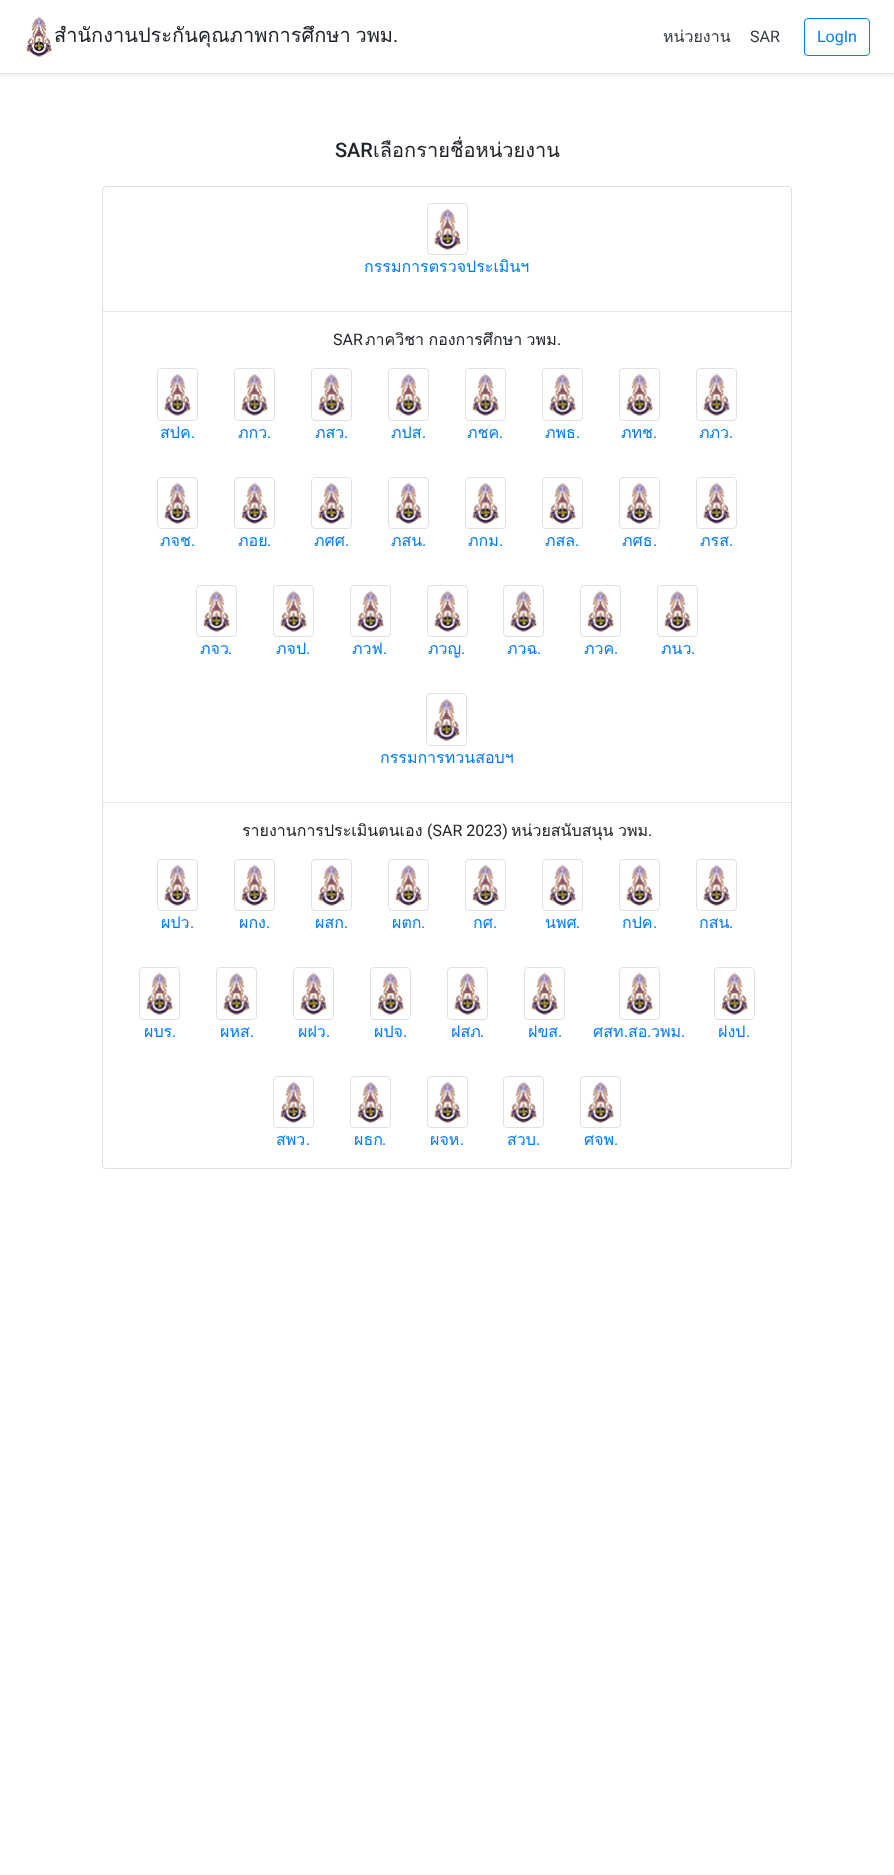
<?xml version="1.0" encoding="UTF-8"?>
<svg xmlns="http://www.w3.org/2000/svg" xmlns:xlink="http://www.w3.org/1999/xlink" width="894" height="1875">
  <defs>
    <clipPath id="clip1"><rect x="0" y="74" width="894" height="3" /></clipPath>
  </defs>
  <rect width="100%" height="100%" fill="#ffffff" />
  <g clip-path="url(#clip1)">
    <rect y="2" width="894" height="74" fill="#000000" fill-opacity="0.07" filter="blur(2px)" />
  </g>
  <rect y="73" width="894" height="1" fill="#dee2e6" />
  <image x="25" y="16" width="28" height="41" xlink:href="image1.png" />
  <rect x="804.5" y="18.5" width="65" height="37" rx="3.5" fill="none" stroke="#007bff" />
  <rect x="102.5" y="186.5" width="689" height="982" rx="3.5" fill="none" stroke="#dfdfdf" />
  <rect x="427.5" y="203.5" width="40" height="51" rx="3.5" fill="none" stroke="#dee2e6" />
  <image x="433" y="208" width="29" height="42" xlink:href="image2.png" />
  <rect x="103" y="311" width="688" height="1" fill="#e6e6e6" />
  <rect x="157.5" y="368.5" width="40" height="52" rx="3.5" fill="none" stroke="#dee2e6" />
  <image x="163" y="373" width="29" height="43" xlink:href="image3.png" />
  <rect x="234.5" y="368.5" width="40" height="52" rx="3.5" fill="none" stroke="#dee2e6" />
  <image x="240" y="373" width="29" height="43" xlink:href="image3.png" />
  <rect x="311.5" y="368.5" width="40" height="52" rx="3.5" fill="none" stroke="#dee2e6" />
  <image x="317" y="373" width="29" height="43" xlink:href="image3.png" />
  <rect x="388.5" y="368.5" width="40" height="52" rx="3.5" fill="none" stroke="#dee2e6" />
  <image x="394" y="373" width="29" height="43" xlink:href="image3.png" />
  <rect x="465.5" y="368.5" width="40" height="52" rx="3.5" fill="none" stroke="#dee2e6" />
  <image x="471" y="373" width="29" height="43" xlink:href="image3.png" />
  <rect x="542.5" y="368.5" width="40" height="52" rx="3.5" fill="none" stroke="#dee2e6" />
  <image x="548" y="373" width="29" height="43" xlink:href="image3.png" />
  <rect x="619.5" y="368.5" width="40" height="52" rx="3.5" fill="none" stroke="#dee2e6" />
  <image x="625" y="373" width="29" height="43" xlink:href="image4.png" />
  <rect x="696.5" y="368.5" width="40" height="52" rx="3.5" fill="none" stroke="#dee2e6" />
  <image x="702" y="373" width="29" height="43" xlink:href="image3.png" />
  <rect x="157.5" y="477.5" width="40" height="51" rx="3.5" fill="none" stroke="#dee2e6" />
  <image x="163" y="482" width="29" height="42" xlink:href="image2.png" />
  <rect x="234.5" y="477.5" width="40" height="51" rx="3.5" fill="none" stroke="#dee2e6" />
  <image x="240" y="482" width="29" height="42" xlink:href="image2.png" />
  <rect x="311.5" y="477.5" width="40" height="51" rx="3.5" fill="none" stroke="#dee2e6" />
  <image x="317" y="482" width="29" height="42" xlink:href="image2.png" />
  <rect x="388.5" y="477.5" width="40" height="51" rx="3.5" fill="none" stroke="#dee2e6" />
  <image x="394" y="482" width="29" height="42" xlink:href="image2.png" />
  <rect x="465.5" y="477.5" width="40" height="51" rx="3.5" fill="none" stroke="#dee2e6" />
  <image x="471" y="482" width="29" height="42" xlink:href="image2.png" />
  <rect x="542.5" y="477.5" width="40" height="51" rx="3.5" fill="none" stroke="#dee2e6" />
  <image x="548" y="482" width="29" height="42" xlink:href="image2.png" />
  <rect x="619.5" y="477.5" width="40" height="51" rx="3.5" fill="none" stroke="#dee2e6" />
  <image x="625" y="482" width="29" height="42" xlink:href="image5.png" />
  <rect x="696.5" y="477.5" width="40" height="51" rx="3.5" fill="none" stroke="#dee2e6" />
  <image x="702" y="482" width="29" height="42" xlink:href="image2.png" />
  <rect x="196.5" y="585.5" width="40" height="51" rx="3.5" fill="none" stroke="#dee2e6" />
  <image x="202" y="590" width="29" height="42" xlink:href="image2.png" />
  <rect x="273.5" y="585.5" width="40" height="51" rx="3.5" fill="none" stroke="#dee2e6" />
  <image x="279" y="590" width="29" height="42" xlink:href="image2.png" />
  <rect x="350.5" y="585.5" width="40" height="51" rx="3.5" fill="none" stroke="#dee2e6" />
  <image x="356" y="590" width="29" height="42" xlink:href="image2.png" />
  <rect x="427.5" y="585.5" width="40" height="51" rx="3.5" fill="none" stroke="#dee2e6" />
  <image x="433" y="590" width="29" height="42" xlink:href="image2.png" />
  <rect x="503.5" y="585.5" width="40" height="51" rx="3.5" fill="none" stroke="#dee2e6" />
  <image x="509" y="590" width="29" height="42" xlink:href="image2.png" />
  <rect x="580.5" y="585.5" width="40" height="51" rx="3.5" fill="none" stroke="#dee2e6" />
  <image x="586" y="590" width="29" height="42" xlink:href="image2.png" />
  <rect x="657.5" y="585.5" width="40" height="51" rx="3.5" fill="none" stroke="#dee2e6" />
  <image x="663" y="590" width="29" height="42" xlink:href="image2.png" />
  <rect x="426.5" y="693.5" width="40" height="52" rx="3.5" fill="none" stroke="#dee2e6" />
  <image x="432" y="698" width="29" height="43" xlink:href="image3.png" />
  <rect x="103" y="802" width="688" height="1" fill="#e6e6e6" />
  <rect x="157.5" y="859.5" width="40" height="51" rx="3.5" fill="none" stroke="#dee2e6" />
  <image x="163" y="864" width="29" height="42" xlink:href="image6.png" />
  <rect x="234.5" y="859.5" width="40" height="51" rx="3.5" fill="none" stroke="#dee2e6" />
  <image x="240" y="864" width="29" height="42" xlink:href="image6.png" />
  <rect x="311.5" y="859.5" width="40" height="51" rx="3.5" fill="none" stroke="#dee2e6" />
  <image x="317" y="864" width="29" height="42" xlink:href="image6.png" />
  <rect x="388.5" y="859.5" width="40" height="51" rx="3.5" fill="none" stroke="#dee2e6" />
  <image x="394" y="864" width="29" height="42" xlink:href="image6.png" />
  <rect x="465.5" y="859.5" width="40" height="51" rx="3.5" fill="none" stroke="#dee2e6" />
  <image x="471" y="864" width="29" height="42" xlink:href="image6.png" />
  <rect x="542.5" y="859.5" width="40" height="51" rx="3.5" fill="none" stroke="#dee2e6" />
  <image x="548" y="864" width="29" height="42" xlink:href="image6.png" />
  <rect x="619.5" y="859.5" width="40" height="51" rx="3.5" fill="none" stroke="#dee2e6" />
  <image x="625" y="864" width="29" height="42" xlink:href="image7.png" />
  <rect x="696.5" y="859.5" width="40" height="51" rx="3.5" fill="none" stroke="#dee2e6" />
  <image x="702" y="864" width="29" height="42" xlink:href="image6.png" />
  <rect x="139.5" y="967.5" width="40" height="52" rx="3.5" fill="none" stroke="#dee2e6" />
  <image x="145" y="972" width="29" height="43" xlink:href="image3.png" />
  <rect x="216.5" y="967.5" width="40" height="52" rx="3.5" fill="none" stroke="#dee2e6" />
  <image x="222" y="972" width="29" height="43" xlink:href="image3.png" />
  <rect x="293.5" y="967.5" width="40" height="52" rx="3.5" fill="none" stroke="#dee2e6" />
  <image x="299" y="972" width="29" height="43" xlink:href="image3.png" />
  <rect x="370.5" y="967.5" width="40" height="52" rx="3.5" fill="none" stroke="#dee2e6" />
  <image x="376" y="972" width="29" height="43" xlink:href="image3.png" />
  <rect x="447.5" y="967.5" width="40" height="52" rx="3.5" fill="none" stroke="#dee2e6" />
  <image x="453" y="972" width="29" height="43" xlink:href="image3.png" />
  <rect x="524.5" y="967.5" width="40" height="52" rx="3.5" fill="none" stroke="#dee2e6" />
  <image x="530" y="972" width="29" height="43" xlink:href="image4.png" />
  <rect x="619.5" y="967.5" width="40" height="52" rx="3.5" fill="none" stroke="#dee2e6" />
  <image x="625" y="972" width="29" height="43" xlink:href="image4.png" />
  <rect x="714.5" y="967.5" width="40" height="52" rx="3.5" fill="none" stroke="#dee2e6" />
  <image x="720" y="972" width="29" height="43" xlink:href="image3.png" />
  <rect x="273.5" y="1076.5" width="40" height="51" rx="3.5" fill="none" stroke="#dee2e6" />
  <image x="279" y="1081" width="29" height="42" xlink:href="image2.png" />
  <rect x="350.5" y="1076.5" width="40" height="51" rx="3.5" fill="none" stroke="#dee2e6" />
  <image x="356" y="1081" width="29" height="42" xlink:href="image2.png" />
  <rect x="427.5" y="1076.5" width="40" height="51" rx="3.5" fill="none" stroke="#dee2e6" />
  <image x="433" y="1081" width="29" height="42" xlink:href="image2.png" />
  <rect x="503.5" y="1076.5" width="40" height="51" rx="3.5" fill="none" stroke="#dee2e6" />
  <image x="509" y="1081" width="29" height="42" xlink:href="image2.png" />
  <rect x="580.5" y="1076.5" width="40" height="51" rx="3.5" fill="none" stroke="#dee2e6" />
  <image x="586" y="1081" width="29" height="42" xlink:href="image2.png" />
  <text x="54" y="42" word-spacing="-2" style="font-family: Loma; font-size: 20px; fill: #212529">สำนักงานประกันคุณภาพการศึกษา วพม</text>
  <text x="393" y="42" style="font-family: Roboto; font-size: 20px; fill: #212529">.</text>
  <text x="663" y="42" style="font-family: Loma; font-size: 16px; fill: #343a40">หน่วยงาน</text>
  <text x="750" y="42" style="font-family: Roboto; font-size: 16px; fill: #343a40">SAR</text>
  <text x="817" y="42" style="font-family: Roboto; font-size: 16px; fill: #007bff">LogIn</text>
  <text x="335" y="157" style="font-family: Roboto; font-size: 20px; font-weight: 500; fill: #212529">SAR</text>
  <text x="373" y="157" style="font-family: Loma; font-size: 20px; fill: #212529">เลือกรายชื่อหน่วยงาน</text>
  <text x="364" y="272" style="font-family: Loma; font-size: 16px; fill: #007bff">กรรมการตรวจประเมินฯ</text>
  <text x="333" y="345" style="font-family: Roboto; font-size: 16px; fill: #212529">SAR</text>
  <text x="365" y="345" word-spacing="-1" style="font-family: Loma; font-size: 16px; fill: #212529">ภาควิชา กองการศึกษา วพม</text>
  <text x="557" y="345" style="font-family: Roboto; font-size: 16px; fill: #212529">.</text>
  <text x="160" y="438" style="font-family: Loma; font-size: 16px; fill: #007bff">สปค</text>
  <text x="191" y="438" style="font-family: Roboto; font-size: 16px; fill: #007bff">.</text>
  <text x="238" y="438" style="font-family: Loma; font-size: 16px; fill: #007bff">ภกว</text>
  <text x="267" y="438" style="font-family: Roboto; font-size: 16px; fill: #007bff">.</text>
  <text x="315" y="438" style="font-family: Loma; font-size: 16px; fill: #007bff">ภสว</text>
  <text x="344" y="438" style="font-family: Roboto; font-size: 16px; fill: #007bff">.</text>
  <text x="391" y="438" style="font-family: Loma; font-size: 16px; fill: #007bff">ภปส</text>
  <text x="422" y="438" style="font-family: Roboto; font-size: 16px; fill: #007bff">.</text>
  <text x="467" y="438" style="font-family: Loma; font-size: 16px; fill: #007bff">ภชค</text>
  <text x="499" y="438" style="font-family: Roboto; font-size: 16px; fill: #007bff">.</text>
  <text x="545" y="438" style="font-family: Loma; font-size: 16px; fill: #007bff">ภพธ</text>
  <text x="576" y="438" style="font-family: Roboto; font-size: 16px; fill: #007bff">.</text>
  <text x="621" y="438" style="font-family: Loma; font-size: 16px; fill: #007bff">ภทช</text>
  <text x="653" y="438" style="font-family: Roboto; font-size: 16px; fill: #007bff">.</text>
  <text x="699" y="438" style="font-family: Loma; font-size: 16px; fill: #007bff">ภภว</text>
  <text x="729" y="438" style="font-family: Roboto; font-size: 16px; fill: #007bff">.</text>
  <text x="160" y="546" style="font-family: Loma; font-size: 16px; fill: #007bff">ภจช</text>
  <text x="191" y="546" style="font-family: Roboto; font-size: 16px; fill: #007bff">.</text>
  <text x="238" y="546" style="font-family: Loma; font-size: 16px; fill: #007bff">ภอย</text>
  <text x="267" y="546" style="font-family: Roboto; font-size: 16px; fill: #007bff">.</text>
  <text x="314" y="546" style="font-family: Loma; font-size: 16px; fill: #007bff">ภศศ</text>
  <text x="345" y="546" style="font-family: Roboto; font-size: 16px; fill: #007bff">.</text>
  <text x="391" y="546" style="font-family: Loma; font-size: 16px; fill: #007bff">ภสน</text>
  <text x="422" y="546" style="font-family: Roboto; font-size: 16px; fill: #007bff">.</text>
  <text x="468" y="546" style="font-family: Loma; font-size: 16px; fill: #007bff">ภกม</text>
  <text x="499" y="546" style="font-family: Roboto; font-size: 16px; fill: #007bff">.</text>
  <text x="545" y="546" style="font-family: Loma; font-size: 16px; fill: #007bff">ภสล</text>
  <text x="575" y="546" style="font-family: Roboto; font-size: 16px; fill: #007bff">.</text>
  <text x="622" y="546" style="font-family: Loma; font-size: 16px; fill: #007bff">ภศธ</text>
  <text x="653" y="546" style="font-family: Roboto; font-size: 16px; fill: #007bff">.</text>
  <text x="700" y="546" style="font-family: Loma; font-size: 16px; fill: #007bff">ภรส</text>
  <text x="729" y="546" style="font-family: Roboto; font-size: 16px; fill: #007bff">.</text>
  <text x="200" y="654" style="font-family: Loma; font-size: 16px; fill: #007bff">ภจว</text>
  <text x="228" y="654" style="font-family: Roboto; font-size: 16px; fill: #007bff">.</text>
  <text x="276" y="654" style="font-family: Loma; font-size: 16px; fill: #007bff">ภจป</text>
  <text x="306" y="654" style="font-family: Roboto; font-size: 16px; fill: #007bff">.</text>
  <text x="352" y="654" style="font-family: Loma; font-size: 16px; fill: #007bff">ภวฟ</text>
  <text x="383" y="654" style="font-family: Roboto; font-size: 16px; fill: #007bff">.</text>
  <text x="428" y="654" style="font-family: Loma; font-size: 16px; fill: #007bff">ภวญ</text>
  <text x="461" y="654" style="font-family: Roboto; font-size: 16px; fill: #007bff">.</text>
  <text x="507" y="654" style="font-family: Loma; font-size: 16px; fill: #007bff">ภวฉ</text>
  <text x="537" y="654" style="font-family: Roboto; font-size: 16px; fill: #007bff">.</text>
  <text x="584" y="654" style="font-family: Loma; font-size: 16px; fill: #007bff">ภวค</text>
  <text x="614" y="654" style="font-family: Roboto; font-size: 16px; fill: #007bff">.</text>
  <text x="661" y="654" style="font-family: Loma; font-size: 16px; fill: #007bff">ภนว</text>
  <text x="691" y="654" style="font-family: Roboto; font-size: 16px; fill: #007bff">.</text>
  <text x="380" y="763" style="font-family: Loma; font-size: 16px; fill: #007bff">กรรมการทวนสอบฯ</text>
  <text x="242" y="836" style="font-family: Loma; font-size: 16px; fill: #212529">รายงานการประเมินตนเอง</text>
  <text x="427" y="836" style="font-family: Roboto; font-size: 16px; fill: #212529">(SAR 2023)</text>
  <text x="511" y="836" style="font-family: Loma; font-size: 16px; fill: #212529">หน่วยสนับสนุน</text>
  <text x="618" y="836" style="font-family: Loma; font-size: 16px; fill: #212529">วพม</text>
  <text x="648" y="836" style="font-family: Roboto; font-size: 16px; fill: #212529">.</text>
  <text x="161" y="928" style="font-family: Loma; font-size: 16px; fill: #007bff">ผปว</text>
  <text x="190" y="928" style="font-family: Roboto; font-size: 16px; fill: #007bff">.</text>
  <text x="239" y="928" style="font-family: Loma; font-size: 16px; fill: #007bff">ผกง</text>
  <text x="266" y="928" style="font-family: Roboto; font-size: 16px; fill: #007bff">.</text>
  <text x="315" y="928" style="font-family: Loma; font-size: 16px; fill: #007bff">ผสก</text>
  <text x="344" y="928" style="font-family: Roboto; font-size: 16px; fill: #007bff">.</text>
  <text x="392" y="928" style="font-family: Loma; font-size: 16px; fill: #007bff">ผตก</text>
  <text x="421" y="928" style="font-family: Roboto; font-size: 16px; fill: #007bff">.</text>
  <text x="473" y="928" style="font-family: Loma; font-size: 16px; fill: #007bff">กศ</text>
  <text x="493" y="928" style="font-family: Roboto; font-size: 16px; fill: #007bff">.</text>
  <text x="545" y="928" style="font-family: Loma; font-size: 16px; fill: #007bff">นพศ</text>
  <text x="576" y="928" style="font-family: Roboto; font-size: 16px; fill: #007bff">.</text>
  <text x="622" y="928" style="font-family: Loma; font-size: 16px; fill: #007bff">กปค</text>
  <text x="653" y="928" style="font-family: Roboto; font-size: 16px; fill: #007bff">.</text>
  <text x="699" y="928" style="font-family: Loma; font-size: 16px; fill: #007bff">กสน</text>
  <text x="729" y="928" style="font-family: Roboto; font-size: 16px; fill: #007bff">.</text>
  <text x="144" y="1037" style="font-family: Loma; font-size: 16px; fill: #007bff">ผบร</text>
  <text x="172" y="1037" style="font-family: Roboto; font-size: 16px; fill: #007bff">.</text>
  <text x="220" y="1037" style="font-family: Loma; font-size: 16px; fill: #007bff">ผหส</text>
  <text x="250" y="1037" style="font-family: Roboto; font-size: 16px; fill: #007bff">.</text>
  <text x="298" y="1037" style="font-family: Loma; font-size: 16px; fill: #007bff">ผฝว</text>
  <text x="326" y="1037" style="font-family: Roboto; font-size: 16px; fill: #007bff">.</text>
  <text x="374" y="1037" style="font-family: Loma; font-size: 16px; fill: #007bff">ผปจ</text>
  <text x="403" y="1037" style="font-family: Roboto; font-size: 16px; fill: #007bff">.</text>
  <text x="451" y="1037" style="font-family: Loma; font-size: 16px; fill: #007bff">ฝสภ</text>
  <text x="480" y="1037" style="font-family: Roboto; font-size: 16px; fill: #007bff">.</text>
  <text x="528" y="1037" style="font-family: Loma; font-size: 16px; fill: #007bff">ฝขส</text>
  <text x="558" y="1037" style="font-family: Roboto; font-size: 16px; fill: #007bff">.</text>
  <text x="593" y="1037" style="font-family: Loma; font-size: 16px; fill: #007bff">ศสท</text>
  <text x="624" y="1037" style="font-family: Roboto; font-size: 16px; fill: #007bff">.</text>
  <text x="628" y="1037" style="font-family: Loma; font-size: 16px; fill: #007bff">สอ</text>
  <text x="647" y="1037" style="font-family: Roboto; font-size: 16px; fill: #007bff">.</text>
  <text x="651" y="1037" style="font-family: Loma; font-size: 16px; fill: #007bff">วพม</text>
  <text x="681" y="1037" style="font-family: Roboto; font-size: 16px; fill: #007bff">.</text>
  <text x="718" y="1037" style="font-family: Loma; font-size: 16px; fill: #007bff">ฝงป</text>
  <text x="746" y="1037" style="font-family: Roboto; font-size: 16px; fill: #007bff">.</text>
  <text x="276" y="1145" style="font-family: Loma; font-size: 16px; fill: #007bff">สพว</text>
  <text x="306" y="1145" style="font-family: Roboto; font-size: 16px; fill: #007bff">.</text>
  <text x="354" y="1145" style="font-family: Loma; font-size: 16px; fill: #007bff">ผธก</text>
  <text x="382" y="1145" style="font-family: Roboto; font-size: 16px; fill: #007bff">.</text>
  <text x="430" y="1145" style="font-family: Loma; font-size: 16px; fill: #007bff">ผจห</text>
  <text x="460" y="1145" style="font-family: Roboto; font-size: 16px; fill: #007bff">.</text>
  <text x="507" y="1145" style="font-family: Loma; font-size: 16px; fill: #007bff">สวบ</text>
  <text x="536" y="1145" style="font-family: Roboto; font-size: 16px; fill: #007bff">.</text>
  <text x="584" y="1145" style="font-family: Loma; font-size: 16px; fill: #007bff">ศจพ</text>
  <text x="614" y="1145" style="font-family: Roboto; font-size: 16px; fill: #007bff">.</text>
</svg>
